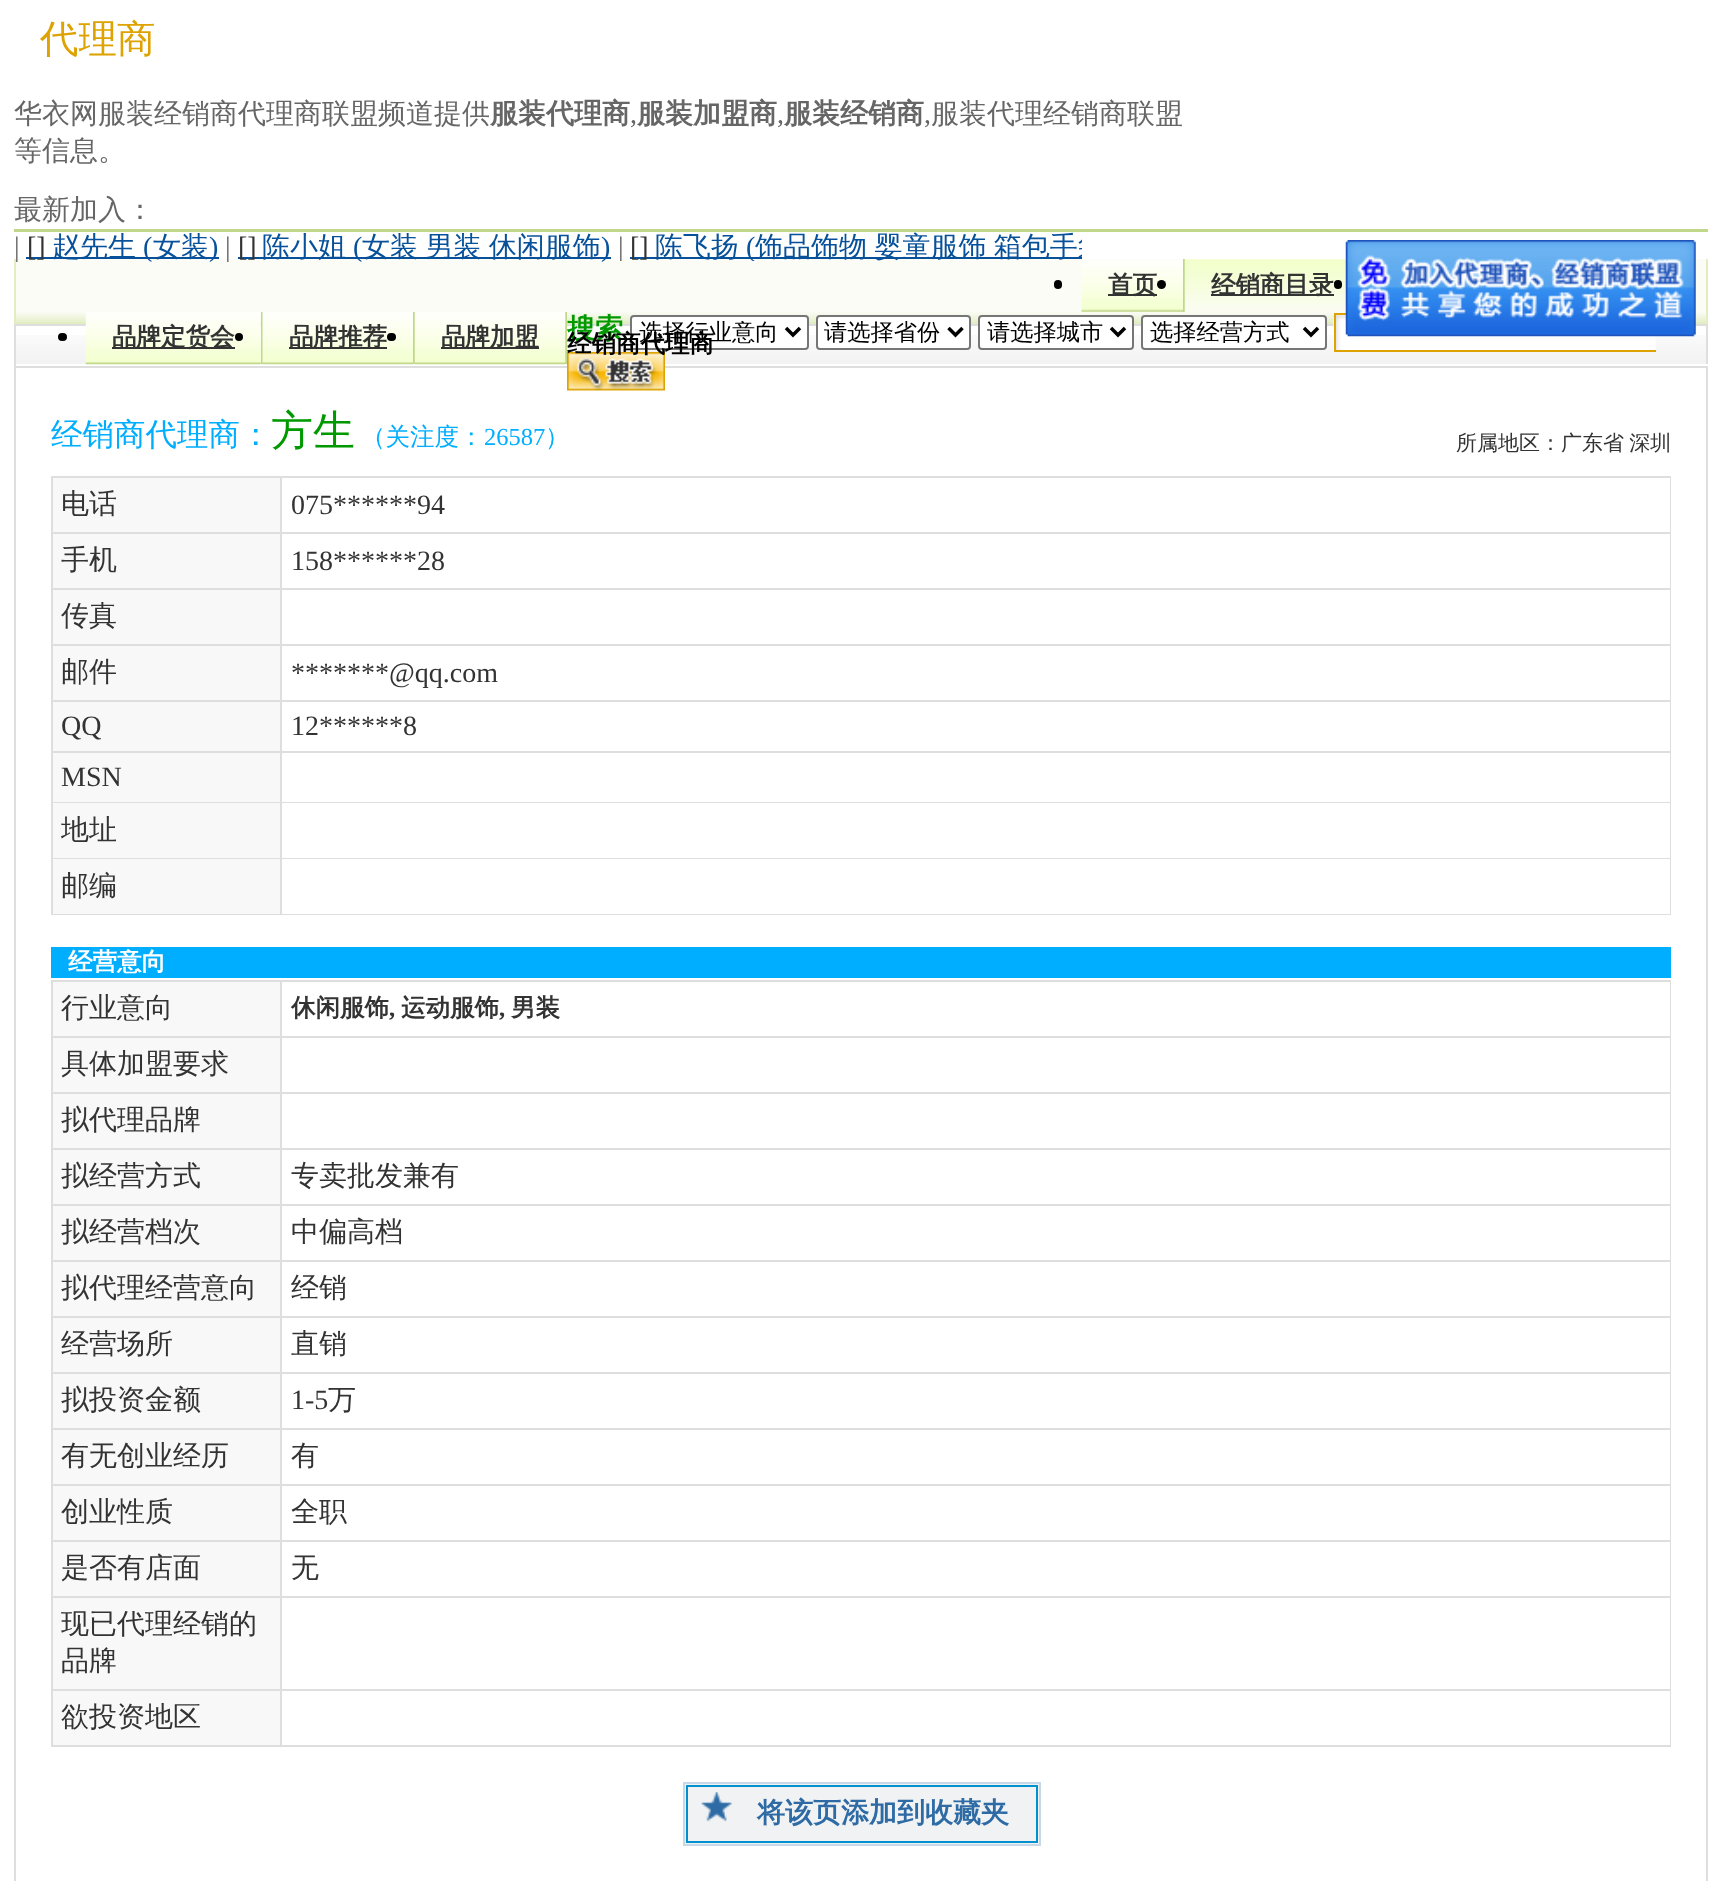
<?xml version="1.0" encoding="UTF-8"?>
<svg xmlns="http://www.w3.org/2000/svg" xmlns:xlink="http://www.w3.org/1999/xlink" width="1721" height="1881">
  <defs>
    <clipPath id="clip1"><rect x="14" y="229" width="1068" height="32" /></clipPath>
  </defs>
  <rect width="100%" height="100%" fill="#ffffff" />
  <rect x="26" y="257" width="193" height="2" fill="#07519a" />
  <rect x="238" y="257" width="373" height="2" fill="#07519a" />
  <rect x="630" y="257" width="452" height="2" fill="#07519a" />
  <rect x="14" y="229" width="1694" height="3" fill="#c1d88b" />
  <image x="16" y="259" width="1690" height="63" xlink:href="image7.png" />
  <rect x="1183" y="259" width="2" height="53" fill="#c1d88b" />
  <rect x="1054" y="280" width="8" height="9" rx="4" fill="#000000" />
  <image x="1184" y="259" width="162" height="53" xlink:href="image2.png" />
  <rect x="1211" y="294" width="123" height="2" fill="#333333" />
  <rect x="1334" y="280" width="8" height="9" rx="4" fill="#000000" />
  <rect x="1706" y="259" width="2" height="65" fill="#e3edc3" />
  <rect x="14" y="322" width="1694" height="2" fill="#e3edc3" />
  <image x="16" y="335" width="1690" height="29" xlink:href="image10.png" />
  <rect x="14" y="324" width="1694" height="2" fill="#dedede" />
  <rect x="261" y="312" width="2" height="52" fill="#c1d88b" />
  <rect x="58" y="333" width="9" height="8" rx="4" fill="#000000" />
  <image x="85" y="312" width="176" height="53" xlink:href="image3.png" />
  <rect x="112" y="347" width="123" height="2" fill="#333333" />
  <rect x="413" y="312" width="2" height="52" fill="#c1d88b" />
  <circle cx="239" cy="337" r="4" fill="#000000" />
  <image x="262" y="312" width="151" height="53" xlink:href="image4.png" />
  <rect x="289" y="347" width="98" height="2" fill="#333333" />
  <rect x="565" y="312" width="2" height="52" fill="#c1d88b" />
  <rect x="387" y="333" width="9" height="8" rx="4" fill="#000000" />
  <image x="414" y="312" width="152" height="53" xlink:href="image5.png" />
  <rect x="441" y="347" width="98" height="2" fill="#333333" />
  <image x="1333" y="313" width="323" height="39" xlink:href="image8.png" />
  <rect x="1334" y="313" width="12" height="2" fill="#dea303" />
  <image x="1345" y="240" width="351" height="97" xlink:href="image6.png" />
  <rect x="14" y="259" width="2" height="65" fill="#e3edc3" />
  <rect x="631" y="316" width="177" height="33" rx="3" fill="#ffffff" stroke="#767676" stroke-width="2" />
  <path d="M 786 328 l 7 7 l 7 -7" fill="none" stroke="#000000" stroke-width="3.5" />
  <rect x="817" y="316" width="153" height="33" rx="3" fill="#ffffff" stroke="#767676" stroke-width="2" />
  <path d="M 948.5 328 l 7 7 l 7 -7" fill="none" stroke="#000000" stroke-width="3.5" />
  <rect x="979" y="316" width="154" height="33" rx="3" fill="#ffffff" stroke="#767676" stroke-width="2" />
  <path d="M 1111 328 l 7 7 l 7 -7" fill="none" stroke="#000000" stroke-width="3.5" />
  <rect x="1142" y="316" width="184" height="33" rx="3" fill="#ffffff" stroke="#767676" stroke-width="2" />
  <path d="M 1304 328 l 7 7 l 7 -7" fill="none" stroke="#000000" stroke-width="3.5" />
  <rect x="1334" y="350" width="322" height="2" fill="#dea303" />
  <rect x="1334" y="313" width="2" height="39" fill="#dea303" />
  <rect x="15" y="367" width="1692" height="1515" fill="none" stroke="#dedede" stroke-width="2" />
  <image x="567" y="352" width="98" height="39" xlink:href="image9.png" />
  <rect x="1706" y="324" width="2" height="42" fill="#dedede" />
  <rect x="1706" y="364" width="2" height="2" fill="#ffffff" />
  <rect x="14" y="324" width="2" height="42" fill="#dedede" />
  <rect x="51" y="476" width="1620" height="439" fill="#dedede" />
  <rect x="53" y="478" width="227" height="54" fill="#f8f8f8" />
  <rect x="282" y="478" width="1388" height="54" fill="#ffffff" />
  <rect x="53" y="534" width="227" height="54" fill="#f8f8f8" />
  <rect x="282" y="534" width="1388" height="54" fill="#ffffff" />
  <rect x="53" y="590" width="227" height="54" fill="#f8f8f8" />
  <rect x="282" y="590" width="1388" height="54" fill="#ffffff" />
  <rect x="53" y="646" width="227" height="54" fill="#f8f8f8" />
  <rect x="282" y="646" width="1388" height="54" fill="#ffffff" />
  <rect x="53" y="702" width="227" height="49" fill="#f8f8f8" />
  <rect x="282" y="702" width="1388" height="49" fill="#ffffff" />
  <rect x="53" y="753" width="227" height="49" fill="#f8f8f8" />
  <rect x="282" y="753" width="1388" height="49" fill="#ffffff" />
  <rect x="53" y="803" width="227" height="55" fill="#f8f8f8" />
  <rect x="282" y="803" width="1388" height="55" fill="#ffffff" />
  <rect x="53" y="859" width="227" height="55" fill="#f8f8f8" />
  <rect x="282" y="859" width="1388" height="55" fill="#ffffff" />
  <rect x="51" y="947" width="1620" height="31" fill="#00aeff" />
  <rect x="51" y="980" width="1620" height="767" fill="#dedede" />
  <rect x="53" y="982" width="227" height="54" fill="#f8f8f8" />
  <rect x="282" y="982" width="1388" height="54" fill="#ffffff" />
  <rect x="53" y="1038" width="227" height="54" fill="#f8f8f8" />
  <rect x="282" y="1038" width="1388" height="54" fill="#ffffff" />
  <rect x="53" y="1094" width="227" height="54" fill="#f8f8f8" />
  <rect x="282" y="1094" width="1388" height="54" fill="#ffffff" />
  <rect x="53" y="1150" width="227" height="54" fill="#f8f8f8" />
  <rect x="282" y="1150" width="1388" height="54" fill="#ffffff" />
  <rect x="53" y="1206" width="227" height="54" fill="#f8f8f8" />
  <rect x="282" y="1206" width="1388" height="54" fill="#ffffff" />
  <rect x="53" y="1262" width="227" height="54" fill="#f8f8f8" />
  <rect x="282" y="1262" width="1388" height="54" fill="#ffffff" />
  <rect x="53" y="1318" width="227" height="54" fill="#f8f8f8" />
  <rect x="282" y="1318" width="1388" height="54" fill="#ffffff" />
  <rect x="53" y="1374" width="227" height="54" fill="#f8f8f8" />
  <rect x="282" y="1374" width="1388" height="54" fill="#ffffff" />
  <rect x="53" y="1430" width="227" height="54" fill="#f8f8f8" />
  <rect x="282" y="1430" width="1388" height="54" fill="#ffffff" />
  <rect x="53" y="1486" width="227" height="54" fill="#f8f8f8" />
  <rect x="282" y="1486" width="1388" height="54" fill="#ffffff" />
  <rect x="53" y="1542" width="227" height="54" fill="#f8f8f8" />
  <rect x="282" y="1542" width="1388" height="54" fill="#ffffff" />
  <rect x="53" y="1598" width="227" height="91" fill="#f8f8f8" />
  <rect x="282" y="1598" width="1388" height="91" fill="#ffffff" />
  <rect x="53" y="1691" width="227" height="54" fill="#f8f8f8" />
  <rect x="282" y="1691" width="1388" height="54" fill="#ffffff" />
  <rect x="685" y="1784" width="354" height="60" fill="#f1f2f3" />
  <image x="701" y="1792" width="31" height="30" xlink:href="image11.png" />
  <rect x="684" y="1783" width="356" height="62" fill="none" stroke="#c7d9e9" stroke-width="2" />
  <rect x="687" y="1786" width="350" height="56" fill="none" stroke="#0191ce" stroke-width="2" />
  <text x="40" y="52" style="font-family: WenQuanYi Zen Hei; font-size: 38.5px; font-weight: 500; fill: #dea303">代理商</text>
  <text x="14" y="123" style="font-family: WenQuanYi Zen Hei; font-size: 28px; font-weight: 500; fill: #666666">华衣网服装经销商代理商联盟频道提供</text>
  <text x="490" y="123" style="font-family: WenQuanYi Zen Hei; font-size: 28px; font-weight: bold; fill: #666666">服装代理商</text>
  <text x="630" y="123" style="font-family: Liberation Serif; font-size: 28px; fill: #666666">,</text>
  <text x="637" y="123" style="font-family: WenQuanYi Zen Hei; font-size: 28px; font-weight: bold; fill: #666666">服装加盟商</text>
  <text x="777" y="123" style="font-family: Liberation Serif; font-size: 28px; fill: #666666">,</text>
  <text x="784" y="123" style="font-family: WenQuanYi Zen Hei; font-size: 28px; font-weight: bold; fill: #666666">服装经销商</text>
  <text x="924" y="123" style="font-family: Liberation Serif; font-size: 28px; fill: #666666">,</text>
  <text x="931" y="123" style="font-family: WenQuanYi Zen Hei; font-size: 28px; font-weight: 500; fill: #666666">服装代理经销商联盟</text>
  <text x="14" y="160" style="font-family: WenQuanYi Zen Hei; font-size: 28px; font-weight: 500; fill: #666666">等信息。</text>
  <text x="14" y="219" style="font-family: WenQuanYi Zen Hei; font-size: 28px; font-weight: 500; fill: #666666">最新加入：</text>
  <text x="14" y="256" style="font-family: Liberation Serif; font-size: 28px; fill: #666666">|</text>
  <text x="27" y="256" style="font-family: Liberation Serif; font-size: 28px; fill: #333333">[]</text>
  <text x="52" y="256" style="font-family: WenQuanYi Zen Hei; font-size: 28px; font-weight: 500; fill: #07519a">赵先生</text>
  <text x="143" y="256" style="font-family: Liberation Serif; font-size: 28px; fill: #07519a">(</text>
  <text x="153" y="256" style="font-family: WenQuanYi Zen Hei; font-size: 28px; font-weight: 500; fill: #07519a">女装</text>
  <text x="209" y="256" style="font-family: Liberation Serif; font-size: 28px; fill: #07519a">)</text>
  <text x="225" y="256" style="font-family: Liberation Serif; font-size: 28px; fill: #666666">|</text>
  <text x="238" y="256" style="font-family: Liberation Serif; font-size: 28px; fill: #333333">[]</text>
  <text x="262" y="256" style="font-family: WenQuanYi Zen Hei; font-size: 28px; font-weight: 500; fill: #07519a">陈小姐</text>
  <text x="353" y="256" style="font-family: Liberation Serif; font-size: 28px; fill: #07519a">(</text>
  <text x="362" y="256" word-spacing="-1" style="font-family: WenQuanYi Zen Hei; font-size: 28px; font-weight: 500; fill: #07519a">女装 男装 休闲服饰</text>
  <text x="601" y="256" style="font-family: Liberation Serif; font-size: 28px; fill: #07519a">)</text>
  <g clip-path="url(#clip1)">
    <text x="618" y="256" style="font-family: Liberation Serif; font-size: 28px; fill: #666666">|</text>
  </g>
  <text x="630" y="256" style="font-family: Liberation Serif; font-size: 28px; fill: #333333">[]</text>
  <text x="655" y="256" style="font-family: WenQuanYi Zen Hei; font-size: 28px; font-weight: 500; fill: #07519a">陈飞扬</text>
  <g clip-path="url(#clip1)">
    <text x="746" y="256" style="font-family: Liberation Serif; font-size: 28px; fill: #07519a">(</text>
    <text x="755" y="256" word-spacing="-1" style="font-family: WenQuanYi Zen Hei; font-size: 28px; font-weight: 500; fill: #07519a">饰品饰物 婴童服饰 箱包手袋</text>
  </g>
  <image x="1081" y="260" width="102" height="52" xlink:href="image1.png" />
  <rect x="1108" y="294" width="49" height="2" fill="#333333" />
  <text x="1108" y="293" style="font-family: WenQuanYi Zen Hei; font-size: 24.5px; font-weight: bold; fill: #333333">首页</text>
  <circle cx="1161.5" cy="284.5" r="4.5" fill="#000000" />
  <text x="1211" y="293" style="font-family: WenQuanYi Zen Hei; font-size: 24.5px; font-weight: bold; fill: #333333">经销商目录</text>
  <text x="112" y="345" style="font-family: WenQuanYi Zen Hei; font-size: 24.5px; font-weight: bold; fill: #333333">品牌定货会</text>
  <text x="289" y="345" style="font-family: WenQuanYi Zen Hei; font-size: 24.5px; font-weight: bold; fill: #333333">品牌推荐</text>
  <text x="441" y="345" style="font-family: WenQuanYi Zen Hei; font-size: 24.5px; font-weight: bold; fill: #333333">品牌加盟</text>
  <text x="567" y="338" style="font-family: WenQuanYi Zen Hei; font-size: 28px; font-weight: bold; fill: #009900">搜索</text>
  <text x="639" y="340" style="font-family: WenQuanYi Zen Hei; font-size: 23.25px; font-weight: 500; fill: #000000">选择行业意向</text>
  <text x="824" y="340" style="font-family: WenQuanYi Zen Hei; font-size: 23.25px; font-weight: 500; fill: #000000">请选择省份</text>
  <text x="987" y="340" style="font-family: WenQuanYi Zen Hei; font-size: 23.25px; font-weight: 500; fill: #000000">请选择城市</text>
  <text x="1150" y="340" style="font-family: WenQuanYi Zen Hei; font-size: 23.25px; font-weight: 500; fill: #000000">选择经营方式</text>
  <text x="567" y="352" style="font-family: WenQuanYi Zen Hei; font-size: 24.5px; font-weight: bold; fill: #000000">经销商代理商</text>
  <text x="51" y="445" style="font-family: WenQuanYi Zen Hei; font-size: 31.5px; font-weight: 500; fill: #00aeff">经销商代理商：</text>
  <text x="271" y="445" style="font-family: WenQuanYi Zen Hei; font-size: 42px; font-weight: 500; fill: #009900">方生</text>
  <text x="361" y="445" style="font-family: WenQuanYi Zen Hei; font-size: 24.5px; font-weight: 500; fill: #00aeff">（关注度：</text>
  <text x="484" y="445" style="font-family: Liberation Serif; font-size: 24.5px; fill: #00aeff">26587</text>
  <text x="545" y="445" style="font-family: WenQuanYi Zen Hei; font-size: 24.5px; font-weight: 500; fill: #00aeff">）</text>
  <text x="1456" y="450" word-spacing="-1" style="font-family: WenQuanYi Zen Hei; font-size: 21px; font-weight: 500; fill: #333333">所属地区：广东省 深圳</text>
  <text x="61" y="513" style="font-family: WenQuanYi Zen Hei; font-size: 28px; font-weight: 500; fill: #333333">电话</text>
  <text x="291" y="514" style="font-family: Liberation Serif; font-size: 28px; fill: #333333">075******94</text>
  <text x="61" y="569" style="font-family: WenQuanYi Zen Hei; font-size: 28px; font-weight: 500; fill: #333333">手机</text>
  <text x="291" y="570" style="font-family: Liberation Serif; font-size: 28px; fill: #333333">158******28</text>
  <text x="61" y="625" style="font-family: WenQuanYi Zen Hei; font-size: 28px; font-weight: 500; fill: #333333">传真</text>
  <text x="61" y="681" style="font-family: WenQuanYi Zen Hei; font-size: 28px; font-weight: 500; fill: #333333">邮件</text>
  <text x="291" y="682" style="font-family: Liberation Serif; font-size: 28px; fill: #333333">*******@qq.com</text>
  <text x="61" y="735" style="font-family: Liberation Serif; font-size: 28px; fill: #333333">QQ</text>
  <text x="291" y="735" style="font-family: Liberation Serif; font-size: 28px; fill: #333333">12******8</text>
  <text x="61" y="786" style="font-family: Liberation Serif; font-size: 28px; fill: #333333">MSN</text>
  <text x="61" y="839" style="font-family: WenQuanYi Zen Hei; font-size: 28px; font-weight: 500; fill: #333333">地址</text>
  <text x="61" y="895" style="font-family: WenQuanYi Zen Hei; font-size: 28px; font-weight: 500; fill: #333333">邮编</text>
  <text x="68" y="970" style="font-family: WenQuanYi Zen Hei; font-size: 24.5px; font-weight: bold; fill: #ffffff">经营意向</text>
  <text x="61" y="1017" style="font-family: WenQuanYi Zen Hei; font-size: 28px; font-weight: 500; fill: #333333">行业意向</text>
  <text x="291" y="1016" style="font-family: WenQuanYi Zen Hei; font-size: 24.5px; font-weight: bold; fill: #333333">休闲服饰</text>
  <text x="389" y="1016" style="font-family: Liberation Serif; font-size: 24.5px; font-weight: bold; fill: #333333">,</text>
  <text x="401" y="1016" style="font-family: WenQuanYi Zen Hei; font-size: 24.5px; font-weight: bold; fill: #333333">运动服饰</text>
  <text x="499" y="1016" style="font-family: Liberation Serif; font-size: 24.5px; font-weight: bold; fill: #333333">,</text>
  <text x="511" y="1016" style="font-family: WenQuanYi Zen Hei; font-size: 24.5px; font-weight: bold; fill: #333333">男装</text>
  <text x="61" y="1073" style="font-family: WenQuanYi Zen Hei; font-size: 28px; font-weight: 500; fill: #333333">具体加盟要求</text>
  <text x="61" y="1129" style="font-family: WenQuanYi Zen Hei; font-size: 28px; font-weight: 500; fill: #333333">拟代理品牌</text>
  <text x="61" y="1185" style="font-family: WenQuanYi Zen Hei; font-size: 28px; font-weight: 500; fill: #333333">拟经营方式</text>
  <text x="291" y="1185" style="font-family: WenQuanYi Zen Hei; font-size: 28px; font-weight: 500; fill: #333333">专卖批发兼有</text>
  <text x="61" y="1241" style="font-family: WenQuanYi Zen Hei; font-size: 28px; font-weight: 500; fill: #333333">拟经营档次</text>
  <text x="291" y="1241" style="font-family: WenQuanYi Zen Hei; font-size: 28px; font-weight: 500; fill: #333333">中偏高档</text>
  <text x="61" y="1297" style="font-family: WenQuanYi Zen Hei; font-size: 28px; font-weight: 500; fill: #333333">拟代理经营意向</text>
  <text x="291" y="1297" style="font-family: WenQuanYi Zen Hei; font-size: 28px; font-weight: 500; fill: #333333">经销</text>
  <text x="61" y="1353" style="font-family: WenQuanYi Zen Hei; font-size: 28px; font-weight: 500; fill: #333333">经营场所</text>
  <text x="291" y="1353" style="font-family: WenQuanYi Zen Hei; font-size: 28px; font-weight: 500; fill: #333333">直销</text>
  <text x="61" y="1409" style="font-family: WenQuanYi Zen Hei; font-size: 28px; font-weight: 500; fill: #333333">拟投资金额</text>
  <text x="291" y="1409" style="font-family: Liberation Serif; font-size: 28px; fill: #333333">1-5</text>
  <text x="328" y="1409" style="font-family: WenQuanYi Zen Hei; font-size: 28px; font-weight: 500; fill: #333333">万</text>
  <text x="61" y="1465" style="font-family: WenQuanYi Zen Hei; font-size: 28px; font-weight: 500; fill: #333333">有无创业经历</text>
  <text x="291" y="1465" style="font-family: WenQuanYi Zen Hei; font-size: 28px; font-weight: 500; fill: #333333">有</text>
  <text x="61" y="1521" style="font-family: WenQuanYi Zen Hei; font-size: 28px; font-weight: 500; fill: #333333">创业性质</text>
  <text x="291" y="1521" style="font-family: WenQuanYi Zen Hei; font-size: 28px; font-weight: 500; fill: #333333">全职</text>
  <text x="61" y="1577" style="font-family: WenQuanYi Zen Hei; font-size: 28px; font-weight: 500; fill: #333333">是否有店面</text>
  <text x="291" y="1577" style="font-family: WenQuanYi Zen Hei; font-size: 28px; font-weight: 500; fill: #333333">无</text>
  <text x="61" y="1633" style="font-family: WenQuanYi Zen Hei; font-size: 28px; font-weight: 500; fill: #333333">现已代理经销的</text>
  <text x="61" y="1670" style="font-family: WenQuanYi Zen Hei; font-size: 28px; font-weight: 500; fill: #333333">品牌</text>
  <text x="61" y="1726" style="font-family: WenQuanYi Zen Hei; font-size: 28px; font-weight: 500; fill: #333333">欲投资地区</text>
  <text x="757" y="1822" style="font-family: WenQuanYi Zen Hei; font-size: 28px; font-weight: bold; fill: #2e6ba5">将该页添加到收藏夹</text>
</svg>
